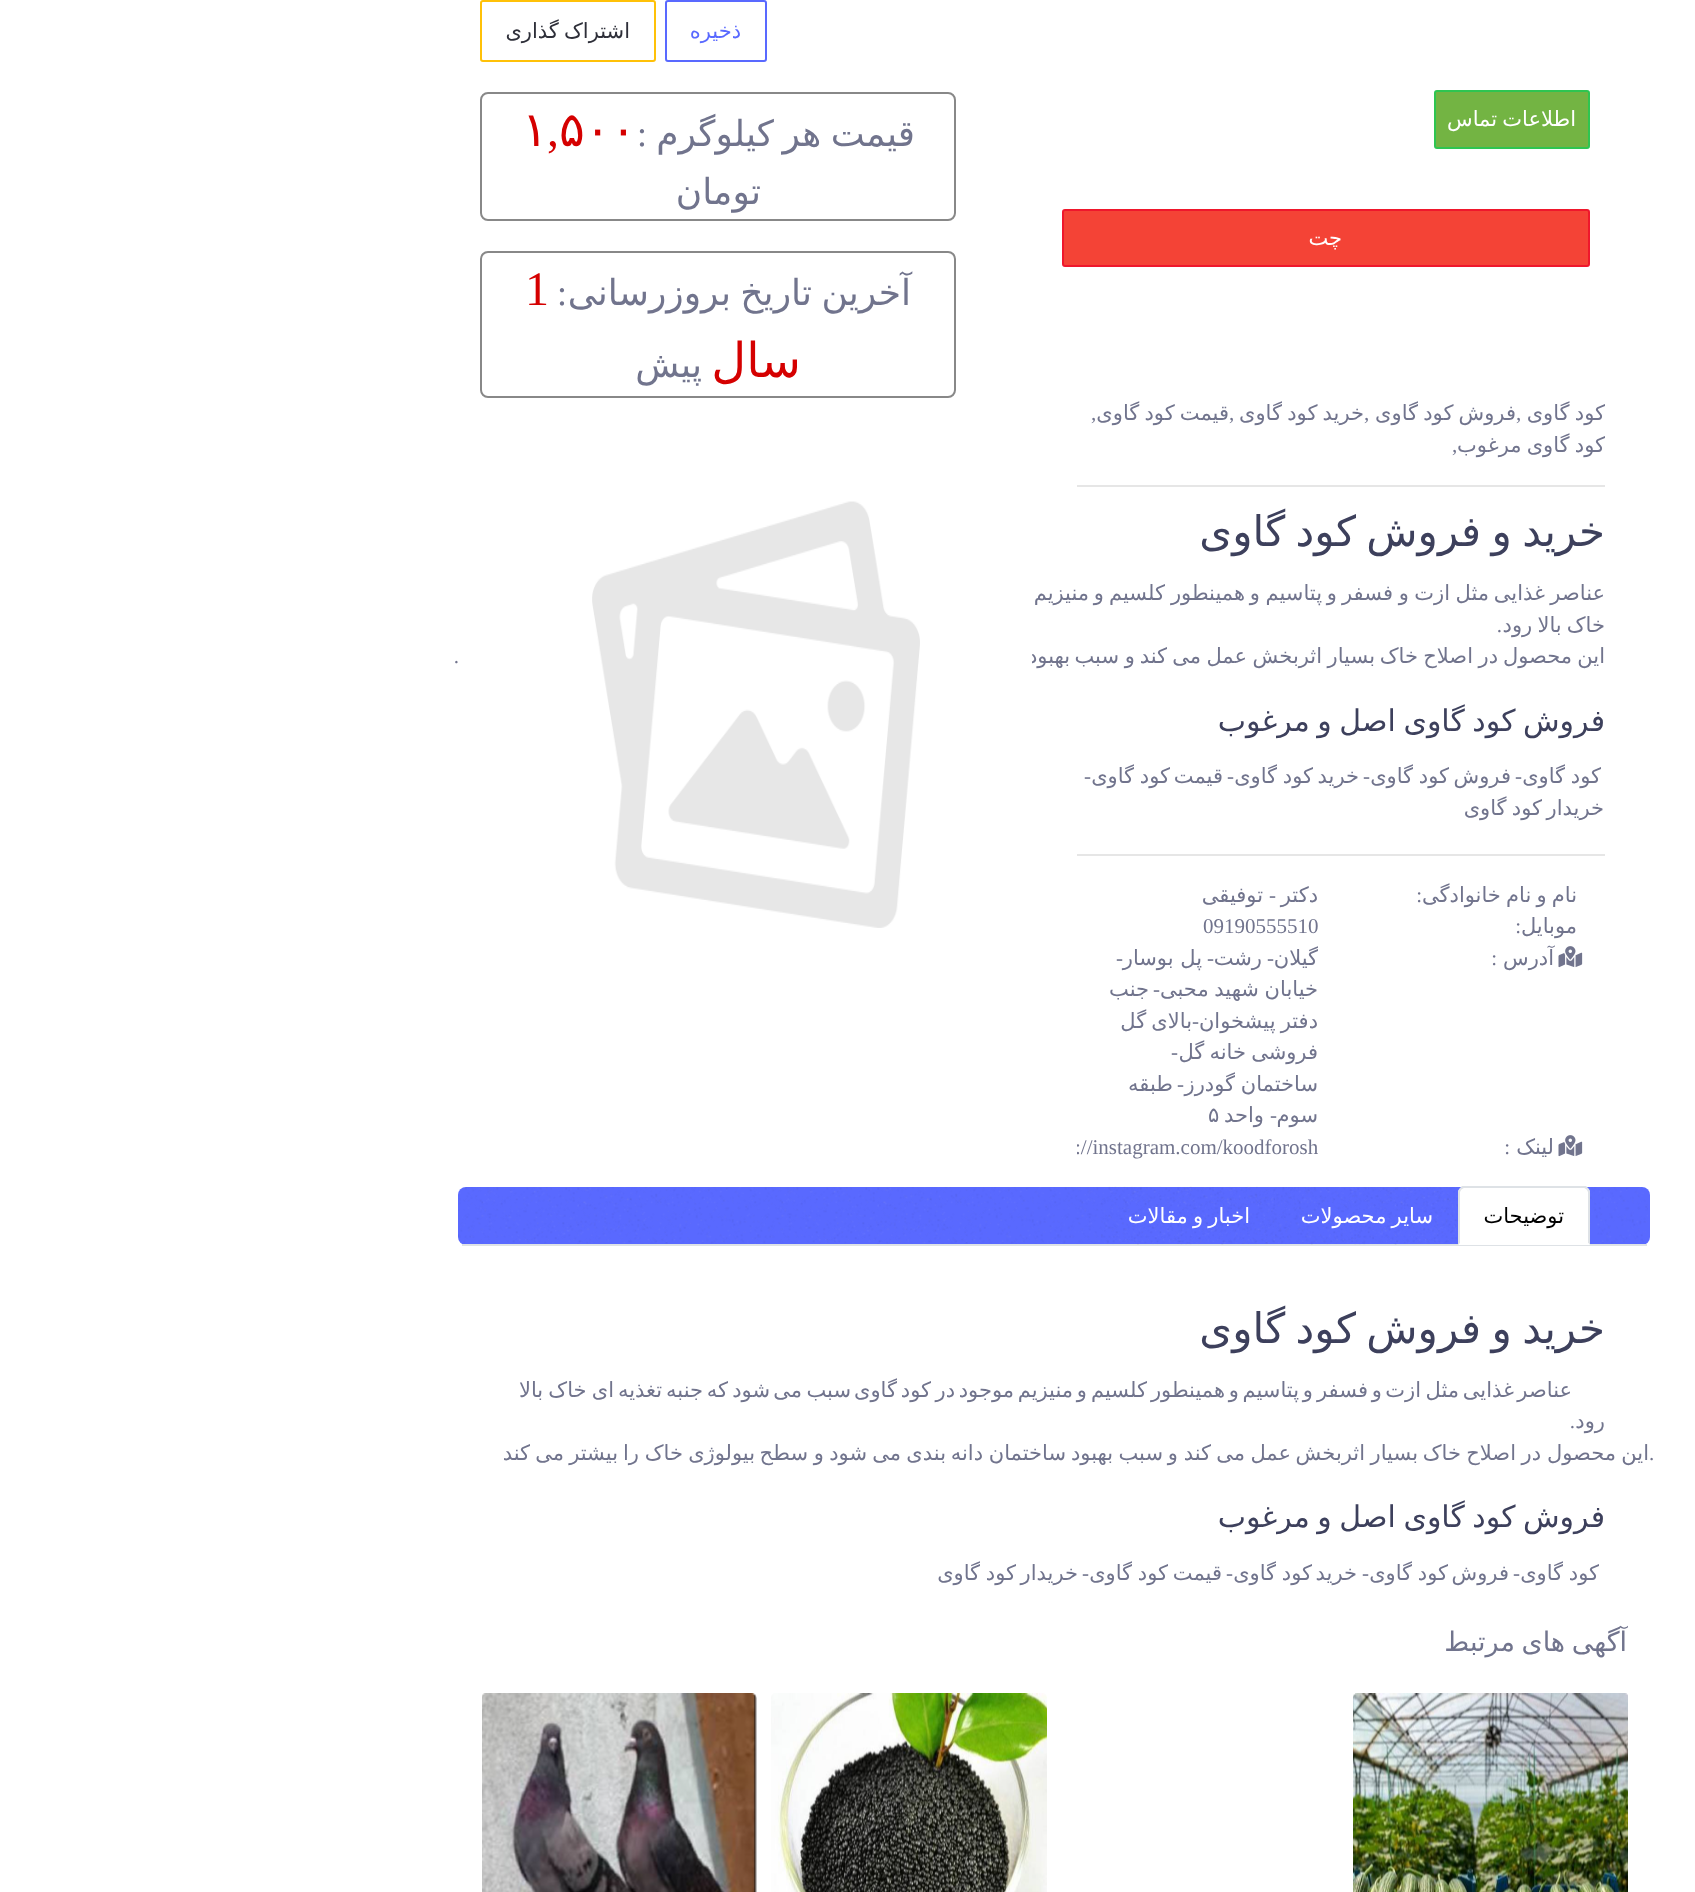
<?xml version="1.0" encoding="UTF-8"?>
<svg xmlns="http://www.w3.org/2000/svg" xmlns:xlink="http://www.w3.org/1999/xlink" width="1695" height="1892">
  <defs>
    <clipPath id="clip1"><rect x="1077" y="1131" width="528" height="32" /></clipPath>
  </defs>
  <rect width="100%" height="100%" fill="#ffffff" />
  <rect x="1435" y="91" width="154" height="57" rx="2" fill="#73b443" stroke="#2ec551" stroke-width="2" />
  <rect x="1063" y="210" width="526" height="56" rx="2" fill="#f44336" stroke="#ef172c" stroke-width="2" />
  <rect x="666" y="1" width="100" height="60" rx="2" fill="none" stroke="#5969ff" stroke-width="2" />
  <rect x="481" y="1" width="174" height="60" rx="2" fill="none" stroke="#ffc108" stroke-width="2" />
  <rect x="481" y="93" width="474" height="127" rx="7" fill="none" stroke="#888888" stroke-width="2" />
  <rect x="481" y="252" width="474" height="145" rx="7" fill="none" stroke="#888888" stroke-width="2" />
  <rect x="1077" y="485" width="528" height="2" fill="#e6e6e6" />
  <rect x="1077" y="854" width="528" height="2" fill="#e6e6e6" />
  <image x="1558" y="946" width="25" height="22" xlink:href="image1.png" />
  <image x="1558" y="1135" width="25" height="22" xlink:href="image1.png" />
  <rect x="458" y="1187" width="1192" height="58" rx="8" fill="#5969ff" />
  <image x="458" y="1187" width="1190" height="57" xlink:href="image3.png" />
  <rect x="462" y="1244" width="1185" height="2" fill="#dee2e6" />
  <image x="1588" y="1189" width="1" height="1" xlink:href="image4.png" />
  <path d="M 1464 1187 h 120 c 3.5 0 6 2.5 6 6 v 52 h -132 v -52 c 0 -3.5 2.5 -6 6 -6 z" fill="#ffffff" />
  <path d="M 1464 1188 c -1 0 -2 1 -3 2 l -1 -2 l 2 -2 h 124 l 2 2 l -1 2 c -1 -1 -2 -2 -3 -2 z" fill="#dee2e6" />
  <path d="M 1590 1245 v -53 c 0 -1 -1 -3 -2 -4 l -1 2 l 1 2 v 51 z" fill="#dee2e6" />
  <path d="M 1590 1245 l -2 -2 v 1 h -128 v -1 l -2 2 z" fill="#ffffff" />
  <path d="M 1458 1245 l 2 -2 v -51 l 1 -2 l -1 -2 c -1 1 -2 3 -2 4 z" fill="#dee2e6" />
  <image x="1275" y="1187" width="183" height="58" xlink:href="image5.png" />
  <image x="1101" y="1186" width="174" height="59" xlink:href="image6.png" />
  <image x="1353" y="1693" width="275" height="199" xlink:href="image7.png" />
  <image x="771" y="1693" width="276" height="199" xlink:href="image8.png" />
  <image x="482" y="1693" width="275" height="199" xlink:href="image9.png" />
  <text x="1576" y="126" word-spacing="-1.5" style="font-family: DejaVu Sans; font-size: 21px; direction: rtl; fill: #ffffff">اطلاعات تماس</text>
  <text x="1342" y="245" style="font-family: DejaVu Sans; font-size: 21px; direction: rtl; fill: #ffffff">چت</text>
  <text x="741" y="38" style="font-family: DejaVu Sans; font-size: 21px; direction: rtl; fill: #5969ff">ذخیره</text>
  <text x="630" y="38" word-spacing="-1.5" style="font-family: DejaVu Sans; font-size: 21px; direction: rtl; fill: #2e2f39">اشتراک گذاری</text>
  <text x="915" y="146" word-spacing="-2" style="font-family: DejaVu Sans; font-size: 36px; direction: rtl; fill: #71748d">قیمت هر</text>
  <text x="774" y="146" style="font-family: DejaVu Sans; font-size: 36px; direction: rtl; fill: #71748d">کیلوگرم</text>
  <text x="637" y="146" style="font-family: Liberation Serif; font-size: 36px; fill: #71748d">:‌</text>
  <text x="559" y="146" style="font-family: DejaVu Sans; font-size: 48px; fill: #d50000">۵۰۰</text>
  <text x="547" y="146" style="font-family: Liberation Serif; font-size: 48px; fill: #d50000">,</text>
  <text x="522" y="146" style="font-family: DejaVu Sans; font-size: 48px; fill: #d50000">۱</text>
  <text x="761" y="204" style="font-family: DejaVu Sans; font-size: 36px; direction: rtl; fill: #71748d">تومان</text>
  <text x="911" y="305" word-spacing="-2" style="font-family: DejaVu Sans; font-size: 36px; direction: rtl; fill: #71748d">آخرین تاریخ بروزرسانی</text>
  <text x="567" y="305" style="font-family: Liberation Serif; font-size: 36px; direction: rtl; fill: #71748d">:‌</text>
  <text x="525" y="305" style="font-family: Liberation Serif; font-size: 48px; fill: #d50000">1</text>
  <text x="801" y="377" style="font-family: DejaVu Sans; font-size: 48px; direction: rtl; fill: #d50000">سال</text>
  <text x="702" y="377" style="font-family: DejaVu Sans; font-size: 36px; direction: rtl; fill: #71748d">پیش</text>
  <text x="1605" y="420" word-spacing="-1.5" style="font-family: DejaVu Sans; font-size: 21px; direction: rtl; fill: #71748d">کود گاوی</text>
  <text x="1516" y="420" style="font-family: Liberation Serif; font-size: 21px; fill: #71748d">,</text>
  <text x="1516" y="420" word-spacing="-1.5" style="font-family: DejaVu Sans; font-size: 21px; direction: rtl; fill: #71748d">فروش کود گاوی</text>
  <text x="1364" y="420" style="font-family: Liberation Serif; font-size: 21px; fill: #71748d">,</text>
  <text x="1364" y="420" word-spacing="-1.5" style="font-family: DejaVu Sans; font-size: 21px; direction: rtl; fill: #71748d">خرید کود گاوی</text>
  <text x="1229" y="420" style="font-family: Liberation Serif; font-size: 21px; fill: #71748d">,</text>
  <text x="1229" y="420" word-spacing="-1.5" style="font-family: DejaVu Sans; font-size: 21px; direction: rtl; fill: #71748d">قیمت کود گاوی</text>
  <text x="1091" y="420" style="font-family: Liberation Serif; font-size: 21px; fill: #71748d">,</text>
  <text x="1605" y="452" word-spacing="-1.5" style="font-family: DejaVu Sans; font-size: 21px; direction: rtl; fill: #71748d">کود گاوی مرغوب</text>
  <text x="1452" y="452" style="font-family: Liberation Serif; font-size: 21px; fill: #71748d">,</text>
  <text x="1605" y="546" word-spacing="-3" style="font-family: DejaVu Sans; font-size: 42px; direction: rtl; fill: #3d405c">خرید و فروش کود گاوی</text>
  <text x="1605" y="600" style="font-family: DejaVu Sans; font-size: 21px; direction: rtl; fill: #71748d">عناصر</text>
  <text x="1545" y="600" style="font-family: DejaVu Sans; font-size: 21px; direction: rtl; fill: #71748d">غذایی</text>
  <text x="1489" y="600" style="font-family: DejaVu Sans; font-size: 21px; direction: rtl; fill: #71748d">مثل</text>
  <text x="1450" y="600" style="font-family: DejaVu Sans; font-size: 21px; direction: rtl; fill: #71748d">ازت</text>
  <text x="1409" y="600" style="font-family: DejaVu Sans; font-size: 21px; direction: rtl; fill: #71748d">و</text>
  <text x="1393" y="600" style="font-family: DejaVu Sans; font-size: 21px; direction: rtl; fill: #71748d">فسفر</text>
  <text x="1337" y="600" style="font-family: DejaVu Sans; font-size: 21px; direction: rtl; fill: #71748d">و</text>
  <text x="1322" y="600" style="font-family: DejaVu Sans; font-size: 21px; direction: rtl; fill: #71748d">پتاسیم</text>
  <text x="1260" y="600" style="font-family: DejaVu Sans; font-size: 21px; direction: rtl; fill: #71748d">و</text>
  <text x="1245" y="600" style="font-family: DejaVu Sans; font-size: 21px; direction: rtl; fill: #71748d">همینطور</text>
  <text x="1165" y="600" style="font-family: DejaVu Sans; font-size: 21px; direction: rtl; fill: #71748d">کلسیم</text>
  <text x="1104" y="600" style="font-family: DejaVu Sans; font-size: 21px; direction: rtl; fill: #71748d">و</text>
  <text x="1089" y="600" style="font-family: DejaVu Sans; font-size: 21px; direction: rtl; fill: #71748d">منیزیم</text>
  <text x="1605" y="632" word-spacing="-1.5" style="font-family: DejaVu Sans; font-size: 21px; direction: rtl; fill: #71748d">خاک بالا رود</text>
  <text x="1502" y="632" style="font-family: Liberation Serif; font-size: 21px; direction: rtl; fill: #71748d">.</text>
  <text x="1605" y="663" style="font-family: DejaVu Sans; font-size: 21px; direction: rtl; fill: #71748d">این</text>
  <text x="1572" y="663" style="font-family: DejaVu Sans; font-size: 21px; direction: rtl; fill: #71748d">محصول</text>
  <text x="1498" y="663" style="font-family: DejaVu Sans; font-size: 21px; direction: rtl; fill: #71748d">در</text>
  <text x="1473" y="663" style="font-family: DejaVu Sans; font-size: 21px; direction: rtl; fill: #71748d">اصلاح</text>
  <text x="1418" y="663" style="font-family: DejaVu Sans; font-size: 21px; direction: rtl; fill: #71748d">خاک</text>
  <text x="1375" y="663" style="font-family: DejaVu Sans; font-size: 21px; direction: rtl; fill: #71748d">بسیار</text>
  <text x="1322" y="663" style="font-family: DejaVu Sans; font-size: 21px; direction: rtl; fill: #71748d">اثربخش</text>
  <text x="1247" y="663" style="font-family: DejaVu Sans; font-size: 21px; direction: rtl; fill: #71748d">عمل</text>
  <text x="1201" y="663" style="font-family: DejaVu Sans; font-size: 21px; direction: rtl; fill: #71748d">می</text>
  <text x="1167" y="663" style="font-family: DejaVu Sans; font-size: 21px; direction: rtl; fill: #71748d">کند</text>
  <text x="1135" y="663" style="font-family: DejaVu Sans; font-size: 21px; direction: rtl; fill: #71748d">و</text>
  <text x="1119" y="663" style="font-family: DejaVu Sans; font-size: 21px; direction: rtl; fill: #71748d">سبب</text>
  <text x="1070" y="663" style="font-family: DejaVu Sans; font-size: 21px; direction: rtl; fill: #71748d">بهبود</text>
  <text x="459" y="663" style="font-family: Liberation Serif; font-size: 21px; direction: rtl; fill: #71748d">.</text>
  <text x="1605" y="731" word-spacing="-2" style="font-family: DejaVu Sans; font-size: 30px; direction: rtl; fill: #3d405c">فروش کود گاوی اصل و مرغوب</text>
  <text x="1601" y="783" word-spacing="-1" style="font-family: DejaVu Sans; font-size: 21px; direction: rtl; fill: #71748d">کود گاوی</text>
  <text x="1522" y="783" style="font-family: Liberation Serif; font-size: 21px; direction: rtl; fill: #71748d">-</text>
  <text x="1511" y="783" style="font-family: DejaVu Sans; font-size: 21px; direction: rtl; fill: #71748d">فروش</text>
  <text x="1449" y="783" word-spacing="-1" style="font-family: DejaVu Sans; font-size: 21px; direction: rtl; fill: #71748d">کود گاوی</text>
  <text x="1370" y="783" style="font-family: Liberation Serif; font-size: 21px; direction: rtl; fill: #71748d">-</text>
  <text x="1359" y="783" style="font-family: DejaVu Sans; font-size: 21px; direction: rtl; fill: #71748d">خرید</text>
  <text x="1313" y="783" word-spacing="-1" style="font-family: DejaVu Sans; font-size: 21px; direction: rtl; fill: #71748d">کود گاوی</text>
  <text x="1234" y="783" style="font-family: Liberation Serif; font-size: 21px; direction: rtl; fill: #71748d">-</text>
  <text x="1223" y="783" style="font-family: DejaVu Sans; font-size: 21px; direction: rtl; fill: #71748d">قیمت</text>
  <text x="1170" y="783" word-spacing="-1" style="font-family: DejaVu Sans; font-size: 21px; direction: rtl; fill: #71748d">کود گاوی</text>
  <text x="1091" y="783" style="font-family: Liberation Serif; font-size: 21px; direction: rtl; fill: #71748d">-</text>
  <text x="1604" y="815" style="font-family: DejaVu Sans; font-size: 21px; direction: rtl; fill: #71748d">خریدار</text>
  <text x="1542" y="815" word-spacing="-1.5" style="font-family: DejaVu Sans; font-size: 21px; direction: rtl; fill: #71748d">کود گاوی</text>
  <text x="1577" y="902" word-spacing="-1.5" style="font-family: DejaVu Sans; font-size: 21px; direction: rtl; fill: #71748d">نام و نام خانوادگی</text>
  <text x="1422" y="902" style="font-family: Liberation Serif; font-size: 21px; direction: rtl; fill: #71748d">:‌</text>
  <text x="1318" y="902" style="font-family: DejaVu Sans; font-size: 21px; direction: rtl; fill: #71748d">دکتر</text>
  <text x="1269" y="902" style="font-family: Liberation Serif; font-size: 21px; fill: #71748d">-</text>
  <text x="1263" y="902" style="font-family: DejaVu Sans; font-size: 21px; direction: rtl; fill: #71748d">توفیقی</text>
  <text x="1577" y="933" style="font-family: DejaVu Sans; font-size: 21px; direction: rtl; fill: #71748d">موبایل</text>
  <text x="1521" y="933" style="font-family: Liberation Serif; font-size: 21px; direction: rtl; fill: #71748d">:‌</text>
  <text x="1203" y="933" style="font-family: Liberation Serif; font-size: 21px; fill: #71748d">09190555510</text>
  <text x="1554" y="965" style="font-family: DejaVu Sans; font-size: 21px; direction: rtl; fill: #71748d">آدرس</text>
  <text x="1497" y="965" style="font-family: Liberation Serif; font-size: 21px; direction: rtl; fill: #71748d">:‌</text>
  <text x="1318" y="965" style="font-family: DejaVu Sans; font-size: 21px; direction: rtl; fill: #71748d">گیلان</text>
  <text x="1274" y="965" style="font-family: Liberation Serif; font-size: 21px; direction: rtl; fill: #71748d">-</text>
  <text x="1262" y="965" style="font-family: DejaVu Sans; font-size: 21px; direction: rtl; fill: #71748d">رشت</text>
  <text x="1214" y="965" style="font-family: Liberation Serif; font-size: 21px; direction: rtl; fill: #71748d">-</text>
  <text x="1123" y="965" style="font-family: Liberation Serif; font-size: 21px; direction: rtl; fill: #71748d">-</text>
  <text x="1202" y="965" style="font-family: DejaVu Sans; font-size: 21px; direction: rtl; fill: #71748d">پل بوسار</text>
  <text x="1318" y="996" word-spacing="-1" style="font-family: DejaVu Sans; font-size: 21px; direction: rtl; fill: #71748d">خیابان شهید محبی</text>
  <text x="1160" y="996" style="font-family: Liberation Serif; font-size: 21px; direction: rtl; fill: #71748d">-</text>
  <text x="1149" y="996" style="font-family: DejaVu Sans; font-size: 21px; direction: rtl; fill: #71748d">جنب</text>
  <text x="1318" y="1028" word-spacing="-1.5" style="font-family: DejaVu Sans; font-size: 21px; direction: rtl; fill: #71748d">دفتر پیشخوان</text>
  <text x="1199" y="1028" style="font-family: Liberation Serif; font-size: 21px; direction: rtl; fill: #71748d">-</text>
  <text x="1192" y="1028" word-spacing="-1.5" style="font-family: DejaVu Sans; font-size: 21px; direction: rtl; fill: #71748d">بالای گل</text>
  <text x="1318" y="1059" word-spacing="-1.5" style="font-family: DejaVu Sans; font-size: 21px; direction: rtl; fill: #71748d">فروشی خانه گل</text>
  <text x="1178" y="1059" style="font-family: Liberation Serif; font-size: 21px; direction: rtl; fill: #71748d">-</text>
  <text x="1184" y="1091" style="font-family: Liberation Serif; font-size: 21px; direction: rtl; fill: #71748d">-</text>
  <text x="1318" y="1091" word-spacing="-1" style="font-family: DejaVu Sans; font-size: 21px; direction: rtl; fill: #71748d">ساختمان گودرز</text>
  <text x="1173" y="1091" style="font-family: DejaVu Sans; font-size: 21px; direction: rtl; fill: #71748d">طبقه</text>
  <text x="1318" y="1122" style="font-family: DejaVu Sans; font-size: 21px; direction: rtl; fill: #71748d">سوم</text>
  <text x="1277" y="1122" style="font-family: Liberation Serif; font-size: 21px; direction: rtl; fill: #71748d">-</text>
  <text x="1264" y="1122" style="font-family: DejaVu Sans; font-size: 21px; direction: rtl; fill: #71748d">واحد</text>
  <text x="1208" y="1122" style="font-family: DejaVu Sans; font-size: 21px; fill: #71748d">۵</text>
  <text x="1554" y="1154" style="font-family: DejaVu Sans; font-size: 21px; direction: rtl; fill: #71748d">لینک</text>
  <text x="1510" y="1154" style="font-family: Liberation Serif; font-size: 21px; direction: rtl; fill: #71748d">:‌</text>
  <g clip-path="url(#clip1)">
    <text x="1075" y="1154" style="font-family: Liberation Serif; font-size: 21px; fill: #71748d">://instagram.com/koodforosh</text>
  </g>
  <image x="480" y="501" width="552" height="427" xlink:href="image2.png" />
  <text x="1564" y="1223" style="font-family: DejaVu Sans; font-size: 21px; direction: rtl; fill: #000000">توضیحات</text>
  <text x="1433" y="1223" word-spacing="-1.5" style="font-family: DejaVu Sans; font-size: 21px; direction: rtl; fill: #ffffff">سایر محصولات</text>
  <text x="1250" y="1223" word-spacing="-1.5" style="font-family: DejaVu Sans; font-size: 21px; direction: rtl; fill: #ffffff">اخبار و مقالات</text>
  <text x="1605" y="1343" word-spacing="-3" style="font-family: DejaVu Sans; font-size: 42px; direction: rtl; fill: #3d405c">خرید و فروش کود گاوی</text>
  <text x="1572" y="1397" style="font-family: DejaVu Sans; font-size: 21px; direction: rtl; fill: #71748d">عناصر</text>
  <text x="1514" y="1397" style="font-family: DejaVu Sans; font-size: 21px; direction: rtl; fill: #71748d">غذایی</text>
  <text x="1459" y="1397" style="font-family: DejaVu Sans; font-size: 21px; direction: rtl; fill: #71748d">مثل</text>
  <text x="1421" y="1397" style="font-family: DejaVu Sans; font-size: 21px; direction: rtl; fill: #71748d">ازت</text>
  <text x="1382" y="1397" style="font-family: DejaVu Sans; font-size: 21px; direction: rtl; fill: #71748d">و</text>
  <text x="1368" y="1397" style="font-family: DejaVu Sans; font-size: 21px; direction: rtl; fill: #71748d">فسفر</text>
  <text x="1313" y="1397" style="font-family: DejaVu Sans; font-size: 21px; direction: rtl; fill: #71748d">و</text>
  <text x="1299" y="1397" style="font-family: DejaVu Sans; font-size: 21px; direction: rtl; fill: #71748d">پتاسیم</text>
  <text x="1239" y="1397" style="font-family: DejaVu Sans; font-size: 21px; direction: rtl; fill: #71748d">و</text>
  <text x="1225" y="1397" style="font-family: DejaVu Sans; font-size: 21px; direction: rtl; fill: #71748d">همینطور</text>
  <text x="1147" y="1397" style="font-family: DejaVu Sans; font-size: 21px; direction: rtl; fill: #71748d">کلسیم</text>
  <text x="1087" y="1397" style="font-family: DejaVu Sans; font-size: 21px; direction: rtl; fill: #71748d">و</text>
  <text x="1073" y="1397" style="font-family: DejaVu Sans; font-size: 21px; direction: rtl; fill: #71748d">منیزیم</text>
  <text x="1014" y="1397" style="font-family: DejaVu Sans; font-size: 21px; direction: rtl; fill: #71748d">موجود</text>
  <text x="955" y="1397" style="font-family: DejaVu Sans; font-size: 21px; direction: rtl; fill: #71748d">در</text>
  <text x="931" y="1397" style="font-family: DejaVu Sans; font-size: 21px; direction: rtl; fill: #71748d">کود</text>
  <text x="897" y="1397" style="font-family: DejaVu Sans; font-size: 21px; direction: rtl; fill: #71748d">گاوی</text>
  <text x="851" y="1397" style="font-family: DejaVu Sans; font-size: 21px; direction: rtl; fill: #71748d">سبب</text>
  <text x="802" y="1397" style="font-family: DejaVu Sans; font-size: 21px; direction: rtl; fill: #71748d">می</text>
  <text x="770" y="1397" style="font-family: DejaVu Sans; font-size: 21px; direction: rtl; fill: #71748d">شود</text>
  <text x="728" y="1397" style="font-family: DejaVu Sans; font-size: 21px; direction: rtl; fill: #71748d">که</text>
  <text x="703" y="1397" style="font-family: DejaVu Sans; font-size: 21px; direction: rtl; fill: #71748d">جنبه</text>
  <text x="662" y="1397" style="font-family: DejaVu Sans; font-size: 21px; direction: rtl; fill: #71748d">تغذیه</text>
  <text x="614" y="1397" word-spacing="-1.5" style="font-family: DejaVu Sans; font-size: 21px; direction: rtl; fill: #71748d">ای خاک بالا</text>
  <text x="1605" y="1428" style="font-family: DejaVu Sans; font-size: 21px; direction: rtl; fill: #71748d">رود</text>
  <text x="1575" y="1428" style="font-family: Liberation Serif; font-size: 21px; direction: rtl; fill: #71748d">.</text>
  <text x="1649" y="1460" style="font-family: Liberation Serif; font-size: 21px; fill: #71748d">.</text>
  <text x="1649" y="1460" style="font-family: DejaVu Sans; font-size: 21px; direction: rtl; fill: #71748d">این</text>
  <text x="1616" y="1460" style="font-family: DejaVu Sans; font-size: 21px; direction: rtl; fill: #71748d">محصول</text>
  <text x="1541" y="1460" style="font-family: DejaVu Sans; font-size: 21px; direction: rtl; fill: #71748d">در</text>
  <text x="1516" y="1460" style="font-family: DejaVu Sans; font-size: 21px; direction: rtl; fill: #71748d">اصلاح</text>
  <text x="1461" y="1460" style="font-family: DejaVu Sans; font-size: 21px; direction: rtl; fill: #71748d">خاک</text>
  <text x="1418" y="1460" style="font-family: DejaVu Sans; font-size: 21px; direction: rtl; fill: #71748d">بسیار</text>
  <text x="1365" y="1460" style="font-family: DejaVu Sans; font-size: 21px; direction: rtl; fill: #71748d">اثربخش</text>
  <text x="1291" y="1460" style="font-family: DejaVu Sans; font-size: 21px; direction: rtl; fill: #71748d">عمل</text>
  <text x="1245" y="1460" style="font-family: DejaVu Sans; font-size: 21px; direction: rtl; fill: #71748d">می</text>
  <text x="1211" y="1460" style="font-family: DejaVu Sans; font-size: 21px; direction: rtl; fill: #71748d">کند</text>
  <text x="1178" y="1460" style="font-family: DejaVu Sans; font-size: 21px; direction: rtl; fill: #71748d">و</text>
  <text x="1163" y="1460" style="font-family: DejaVu Sans; font-size: 21px; direction: rtl; fill: #71748d">سبب</text>
  <text x="1113" y="1460" style="font-family: DejaVu Sans; font-size: 21px; direction: rtl; fill: #71748d">بهبود</text>
  <text x="1066" y="1460" style="font-family: DejaVu Sans; font-size: 21px; direction: rtl; fill: #71748d">ساختمان</text>
  <text x="983" y="1460" style="font-family: DejaVu Sans; font-size: 21px; direction: rtl; fill: #71748d">دانه</text>
  <text x="946" y="1460" style="font-family: DejaVu Sans; font-size: 21px; direction: rtl; fill: #71748d">بندی</text>
  <text x="901" y="1460" style="font-family: DejaVu Sans; font-size: 21px; direction: rtl; fill: #71748d">می</text>
  <text x="867" y="1460" style="font-family: DejaVu Sans; font-size: 21px; direction: rtl; fill: #71748d">شود</text>
  <text x="824" y="1460" style="font-family: DejaVu Sans; font-size: 21px; direction: rtl; fill: #71748d">و</text>
  <text x="808" y="1460" style="font-family: DejaVu Sans; font-size: 21px; direction: rtl; fill: #71748d">سطح</text>
  <text x="755" y="1460" style="font-family: DejaVu Sans; font-size: 21px; direction: rtl; fill: #71748d">بیولوژی</text>
  <text x="683" y="1460" style="font-family: DejaVu Sans; font-size: 21px; direction: rtl; fill: #71748d">خاک</text>
  <text x="639" y="1460" style="font-family: DejaVu Sans; font-size: 21px; direction: rtl; fill: #71748d">را</text>
  <text x="618" y="1460" style="font-family: DejaVu Sans; font-size: 21px; direction: rtl; fill: #71748d">بیشتر</text>
  <text x="564" y="1460" style="font-family: DejaVu Sans; font-size: 21px; direction: rtl; fill: #71748d">می</text>
  <text x="530" y="1460" style="font-family: DejaVu Sans; font-size: 21px; direction: rtl; fill: #71748d">کند</text>
  <text x="1605" y="1527" word-spacing="-2" style="font-family: DejaVu Sans; font-size: 30px; direction: rtl; fill: #3d405c">فروش کود گاوی اصل و مرغوب</text>
  <text x="1599" y="1580" word-spacing="-1" style="font-family: DejaVu Sans; font-size: 21px; direction: rtl; fill: #71748d">کود گاوی</text>
  <text x="1520" y="1580" style="font-family: Liberation Serif; font-size: 21px; direction: rtl; fill: #71748d">-</text>
  <text x="1509" y="1580" style="font-family: DejaVu Sans; font-size: 21px; direction: rtl; fill: #71748d">فروش</text>
  <text x="1448" y="1580" word-spacing="-1" style="font-family: DejaVu Sans; font-size: 21px; direction: rtl; fill: #71748d">کود گاوی</text>
  <text x="1369" y="1580" style="font-family: Liberation Serif; font-size: 21px; direction: rtl; fill: #71748d">-</text>
  <text x="1357" y="1580" style="font-family: DejaVu Sans; font-size: 21px; direction: rtl; fill: #71748d">خرید</text>
  <text x="1312" y="1580" word-spacing="-1" style="font-family: DejaVu Sans; font-size: 21px; direction: rtl; fill: #71748d">کود گاوی</text>
  <text x="1233" y="1580" style="font-family: Liberation Serif; font-size: 21px; direction: rtl; fill: #71748d">-</text>
  <text x="1222" y="1580" style="font-family: DejaVu Sans; font-size: 21px; direction: rtl; fill: #71748d">قیمت</text>
  <text x="1168" y="1580" word-spacing="-1" style="font-family: DejaVu Sans; font-size: 21px; direction: rtl; fill: #71748d">کود گاوی</text>
  <text x="1089" y="1580" style="font-family: Liberation Serif; font-size: 21px; direction: rtl; fill: #71748d">-</text>
  <text x="1078" y="1580" style="font-family: DejaVu Sans; font-size: 21px; direction: rtl; fill: #71748d">خریدار</text>
  <text x="1016" y="1580" word-spacing="-1" style="font-family: DejaVu Sans; font-size: 21px; direction: rtl; fill: #71748d">کود گاوی</text>
  <text x="1627" y="1651" word-spacing="-2" style="font-family: DejaVu Sans; font-size: 27px; direction: rtl; fill: #71748d">آگهی های مرتبط</text>
</svg>
